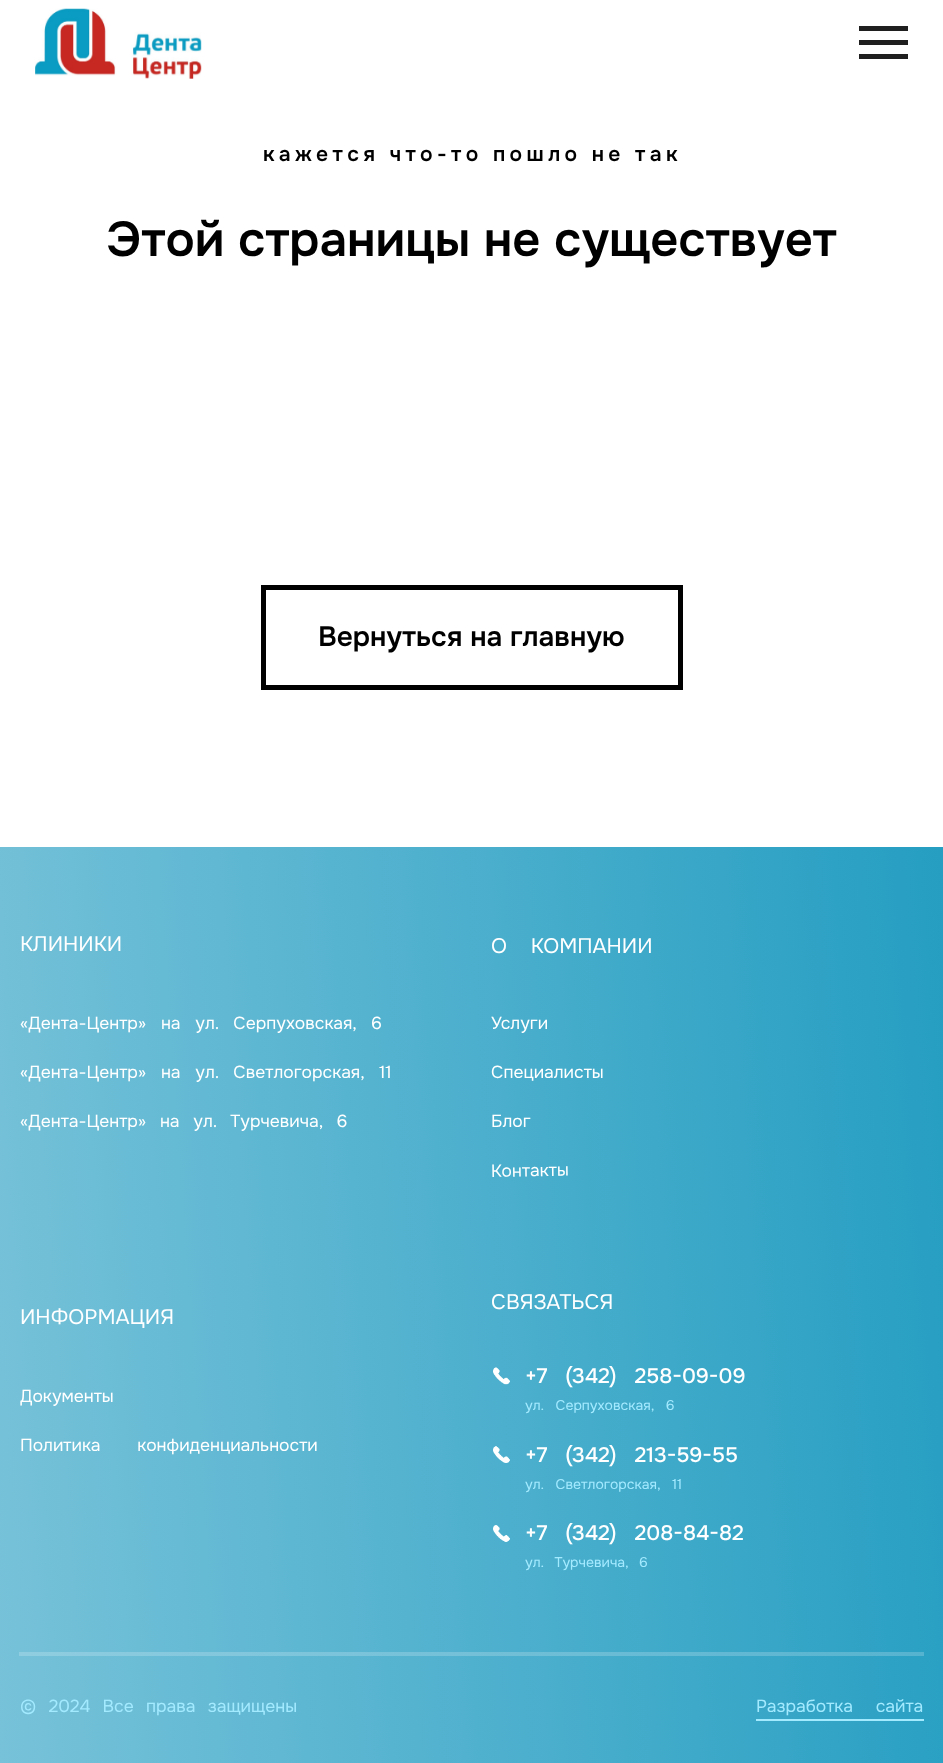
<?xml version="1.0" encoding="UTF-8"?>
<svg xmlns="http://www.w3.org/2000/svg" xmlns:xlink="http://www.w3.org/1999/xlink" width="943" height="1763">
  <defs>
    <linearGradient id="g1" gradientUnits="userSpaceOnUse" x1="-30" y1="1343" x2="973" y2="1273"><stop offset="0" stop-color="#77c2d9" /><stop offset="1" stop-color="#259ec2" /></linearGradient>
    <linearGradient id="g2" gradientUnits="userSpaceOnUse" x1="-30" y1="1343" x2="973" y2="1273"><stop offset="0" stop-color="#92cee1" /><stop offset="1" stop-color="#51b1ce" /></linearGradient>
  </defs>
  <rect width="100%" height="100%" fill="#ffffff" />
  <image x="35" y="8" width="167" height="71" xlink:href="image1.png" />
  <rect x="859" y="26" width="49" height="5" fill="#1f1f1f" />
  <rect x="859" y="40" width="49" height="5" fill="#1f1f1f" />
  <rect x="859" y="54" width="49" height="5" fill="#1f1f1f" />
  <rect x="263.5" y="587.5" width="417" height="100" fill="none" stroke="#000000" stroke-width="5" />
  <rect y="847" width="943" height="916" fill="url(#g1)" />
  <rect x="19" y="1652" width="905" height="4" fill="url(#g2)" />
  <image x="493" y="1367" width="17" height="18" xlink:href="image2.png" />
  <image x="493" y="1446" width="17" height="17" xlink:href="image3.png" />
  <image x="493" y="1525" width="17" height="17" xlink:href="image4.png" />
  <rect x="756" y="1719" width="168" height="2" fill="#a4eaff" />
  <text x="263" y="161" style="font-family: Onest; font-size: 21px; font-weight: 600; letter-spacing: 4.4px; fill: #000000">кажется что-то пошло не так</text>
  <text x="106" y="256" style="font-family: Onest; font-size: 49px; font-weight: 600; fill: #000000">Этой страницы не существует</text>
  <text x="318" y="646" style="font-family: Onest; font-size: 28px; font-weight: 600; fill: #000000">Вернуться на главную</text>
  <text x="20" y="951" style="font-family: Onest; font-size: 21px; fill: #ffffff">КЛИНИКИ</text>
  <text x="491" y="953" word-spacing="18" style="font-family: Onest; font-size: 21px; fill: #ffffff">О КОМПАНИИ</text>
  <text x="20" y="1029" word-spacing="10" style="font-family: Onest; font-size: 17.5px; fill: #ffffff">«Дента-Центр» на ул. Серпуховская, 6</text>
  <text x="491" y="1029" style="font-family: Onest; font-size: 17.5px; fill: #ffffff">Услуги</text>
  <text x="20" y="1078" word-spacing="10" style="font-family: Onest; font-size: 17.5px; fill: #ffffff">«Дента-Центр» на ул. Светлогорская, 11</text>
  <text x="491" y="1078" style="font-family: Onest; font-size: 17.5px; fill: #ffffff">Специалисты</text>
  <text x="20" y="1127" word-spacing="9" style="font-family: Onest; font-size: 17.5px; fill: #ffffff">«Дента-Центр» на ул. Турчевича, 6</text>
  <text x="491" y="1127" style="font-family: Onest; font-size: 17.5px; fill: #ffffff">Блог</text>
  <text x="491" y="1177" transform="rotate(-1 491 1177)" style="font-family: Onest; font-size: 17.5px; fill: #ffffff">Контакты</text>
  <text x="491" y="1309" style="font-family: Onest; font-size: 21px; fill: #ffffff">СВЯЗАТЬСЯ</text>
  <text x="20" y="1324" style="font-family: Onest; font-size: 21px; fill: #ffffff">ИНФОРМАЦИЯ</text>
  <text x="525" y="1383" word-spacing="12" style="font-family: Onest; font-size: 21px; font-weight: 500; fill: #ffffff">+7 (342) 258-09-09</text>
  <text x="20" y="1402" style="font-family: Onest; font-size: 17.5px; fill: #ffffff">Документы</text>
  <text x="525" y="1410" word-spacing="8" style="font-family: Onest; font-size: 14px; fill: #a4eaff">ул. Серпуховская, 6</text>
  <text x="20" y="1451" word-spacing="32" style="font-family: Onest; font-size: 17.5px; fill: #ffffff">Политика конфиденциальности</text>
  <text x="525" y="1462" word-spacing="12" style="font-family: Onest; font-size: 21px; font-weight: 500; fill: #ffffff">+7 (342) 213-59-55</text>
  <text x="525" y="1489" word-spacing="8" style="font-family: Onest; font-size: 14px; fill: #a4eaff">ул. Светлогорская, 11</text>
  <text x="525" y="1540" word-spacing="12" style="font-family: Onest; font-size: 21px; font-weight: 500; fill: #ffffff">+7 (342) 208-84-82</text>
  <text x="525" y="1567" word-spacing="7" style="font-family: Onest; font-size: 14px; fill: #a4eaff">ул. Турчевича, 6</text>
  <text x="20" y="1712" word-spacing="7.5" style="font-family: Onest; font-size: 17.5px; fill: #a4eaff">© 2024 Все права защищены</text>
  <text x="756" y="1712" word-spacing="18" style="font-family: Onest; font-size: 17.5px; fill: #a4eaff">Разработка сайта</text>
</svg>
